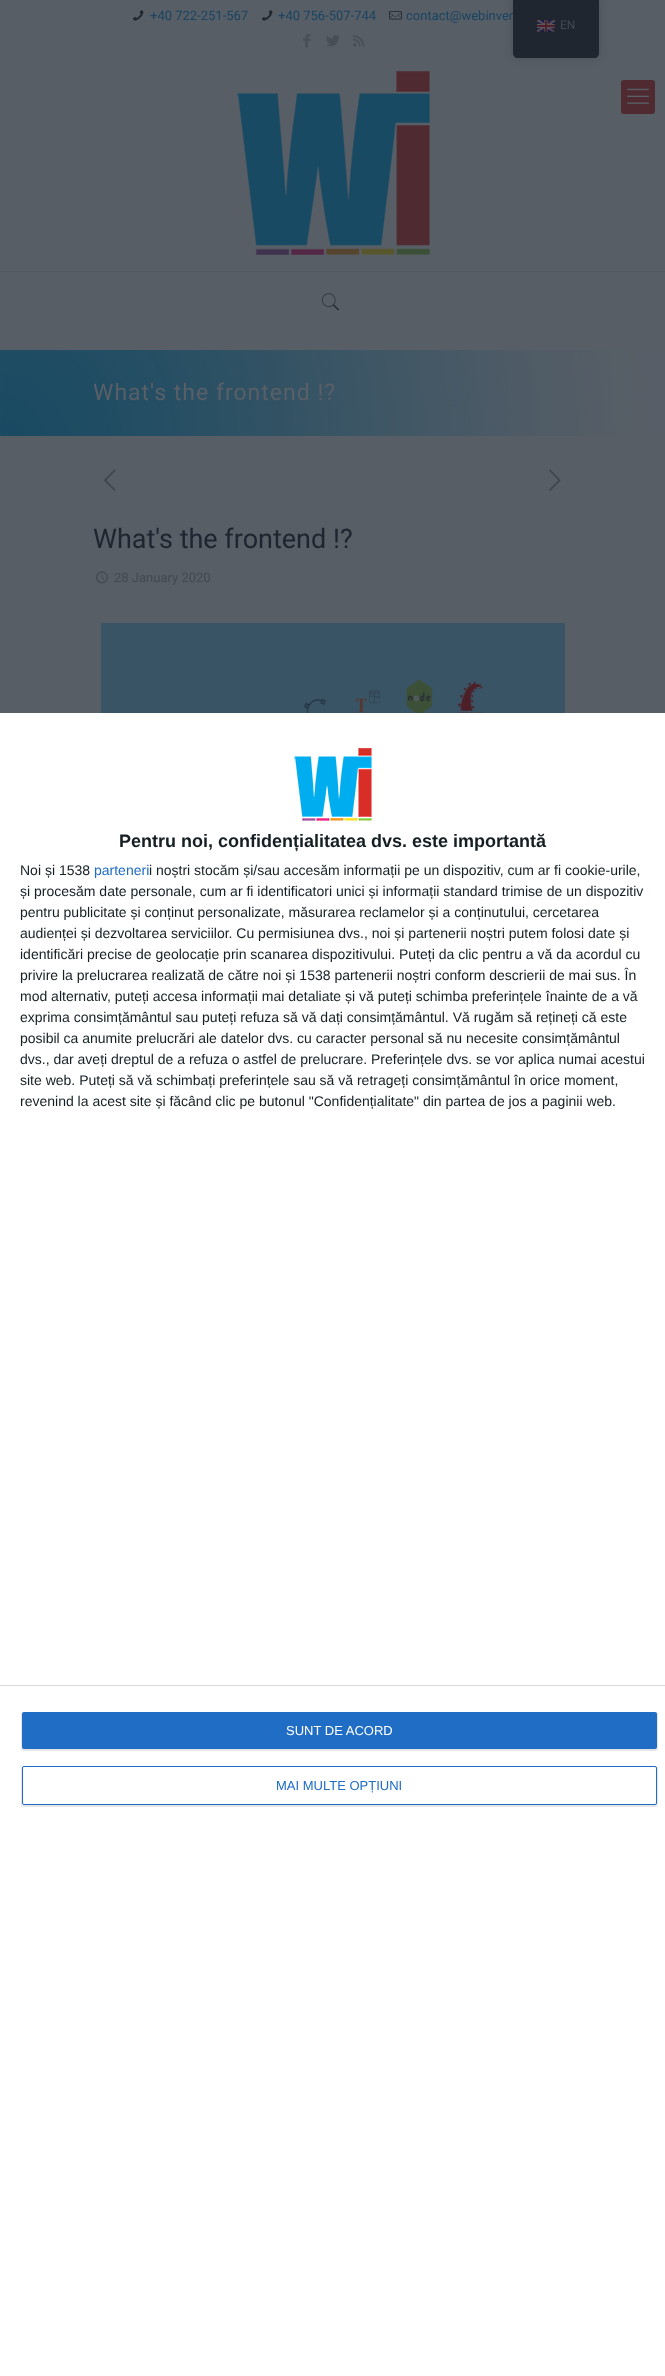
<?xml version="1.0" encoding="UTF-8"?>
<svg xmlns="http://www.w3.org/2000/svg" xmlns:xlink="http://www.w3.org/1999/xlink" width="665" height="2376">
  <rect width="100%" height="100%" fill="#585e66" />
  <image x="133" y="10" width="11" height="11" xlink:href="image1.png" />
  <image x="262" y="10" width="11" height="11" xlink:href="image1.png" />
  <image x="389" y="11" width="13" height="9" xlink:href="image2.png" />
  <image x="303" y="34" width="8" height="14" xlink:href="image3.png" />
  <image x="326" y="35" width="14" height="12" xlink:href="image4.png" />
  <image x="353" y="35" width="12" height="12" xlink:href="image5.png" />
  <rect y="271" width="665" height="1" fill="#545a62" />
  <image x="237" y="71" width="193" height="184" xlink:href="image6.png" />
  <rect x="621" y="80" width="34" height="34" rx="3" fill="#4f2a31" />
  <image x="627" y="88" width="22" height="16" xlink:href="image7.png" />
  <image x="321" y="293" width="19" height="18" xlink:href="image8.png" />
  <image x="0" y="350" width="665" height="86" xlink:href="image9.png" />
  <image x="104" y="469" width="12" height="22" xlink:href="image10.png" />
  <image x="549" y="469" width="12" height="22" xlink:href="image11.png" />
  <image x="96" y="571" width="12" height="13" xlink:href="image12.png" />
  <image x="101" y="623" width="464" height="90" xlink:href="image13.png" />
  <rect x="513" width="86" height="58" rx="5" fill="#191f27" fill-opacity="0.25" filter="blur(4px)" />
  <rect y="713" width="665" height="1663" fill="#ffffff" />
  <image x="294" y="748" width="78" height="73" xlink:href="image15.png" />
  <rect y="1685" width="665" height="1" fill="#d8d8d8" />
  <rect x="21" y="1712" width="637" height="39" rx="3" fill="#000000" fill-opacity="0.1" filter="blur(0.5px)" />
  <rect x="22" y="1712" width="635" height="37" rx="2" fill="#206dc5" />
  <rect x="21" y="1766" width="637" height="41" rx="3" fill="#000000" fill-opacity="0.1" filter="blur(0.5px)" />
  <rect x="22.5" y="1766.5" width="634" height="38" rx="1.5" fill="#ffffff" stroke="#206dc5" />
  <text x="150" y="20" style="font-family: Roboto; font-size: 13px; fill: #194462">+40 722-251-567</text>
  <text x="278" y="20" style="font-family: Roboto; font-size: 13px; fill: #194462">+40 756-507-744</text>
  <text x="406" y="20" style="font-family: Roboto; font-size: 13px; fill: #194462">contact@webinven</text>
  <text x="93" y="400" style="font-family: Roboto; font-size: 23px; letter-spacing: 1px; fill: #595f67">What's the frontend !?</text>
  <text x="93" y="548" style="font-family: Roboto; font-size: 27px; fill: #1e2530">What's the frontend !?</text>
  <text x="114" y="582" style="font-family: Roboto; font-size: 13px; fill: #434951">28 January 2020</text>
  <path d="M 513 0 h 86 v 53 c 0 3 -2 5 -5 5 h -76 c -3 0 -5 -2 -5 -5 z" fill="#20262f" />
  <image x="537" y="20" width="18" height="12" xlink:href="image14.png" />
  <text x="560" y="29" style="font-family: Roboto; font-size: 12px; fill: #434951">EN</text>
  <text x="119" y="847" style="font-family: Liberation Sans; font-size: 18px; font-weight: bold; fill: #141e23">Pentru noi, confidențialitatea dvs. este importantă</text>
  <text x="20" y="875" style="font-family: Liberation Sans; font-size: 14px; fill: #141e23">Noi și 1538</text>
  <text x="94" y="875" style="font-family: Liberation Sans; font-size: 14px; fill: #206dc5">parteneri</text>
  <text x="149" y="875" style="font-family: Liberation Sans; font-size: 14px; fill: #141e23">i noștri stocăm și/sau accesăm informații pe un dispozitiv, cum ar fi cookie-urile,</text>
  <text x="20" y="896" style="font-family: Liberation Sans; font-size: 14px; fill: #141e23">și procesăm date personale, cum ar fi identificatori unici și informații standard trimise de un dispozitiv</text>
  <text x="20" y="917" style="font-family: Liberation Sans; font-size: 14px; fill: #141e23">pentru publicitate și conținut personalizate, măsurarea reclamelor și a conținutului, cercetarea</text>
  <text x="20" y="938" style="font-family: Liberation Sans; font-size: 14px; fill: #141e23">audienței și dezvoltarea serviciilor. Cu permisiunea dvs., noi și partenerii noștri putem folosi date și</text>
  <text x="20" y="959" style="font-family: Liberation Sans; font-size: 14px; fill: #141e23">identificări precise de geolocație prin scanarea dispozitivului. Puteți da clic pentru a vă da acordul cu</text>
  <text x="20" y="980" style="font-family: Liberation Sans; font-size: 14px; fill: #141e23">privire la prelucrarea realizată de către noi și 1538 partenerii noștri conform descrierii de mai sus. În</text>
  <text x="20" y="1001" style="font-family: Liberation Sans; font-size: 14px; fill: #141e23">mod alternativ, puteți accesa informații mai detaliate și vă puteți schimba preferințele înainte de a vă</text>
  <text x="20" y="1022" style="font-family: Liberation Sans; font-size: 14px; fill: #141e23">exprima consimțământul sau puteți refuza să vă dați consimțământul. Vă rugăm să rețineți că este</text>
  <text x="20" y="1043" style="font-family: Liberation Sans; font-size: 14px; fill: #141e23">posibil ca anumite prelucrări ale datelor dvs. cu caracter personal să nu necesite consimțământul</text>
  <text x="20" y="1064" style="font-family: Liberation Sans; font-size: 14px; fill: #141e23">dvs., dar aveți dreptul de a refuza o astfel de prelucrare. Preferințele dvs. se vor aplica numai acestui</text>
  <text x="20" y="1085" style="font-family: Liberation Sans; font-size: 14px; fill: #141e23">site web. Puteți să vă schimbați preferințele sau să vă retrageți consimțământul în orice moment,</text>
  <text x="20" y="1106" style="font-family: Liberation Sans; font-size: 14px; fill: #141e23">revenind la acest site și făcând clic pe butonul "Confidențialitate" din partea de jos a paginii web.</text>
  <text x="286" y="1735" style="font-family: Liberation Sans; font-size: 13px; fill: #ffffff">SUNT DE ACORD</text>
  <text x="276" y="1790" style="font-family: Liberation Sans; font-size: 13px; fill: #206dc5">MAI MULTE OPȚIUNI</text>
</svg>
